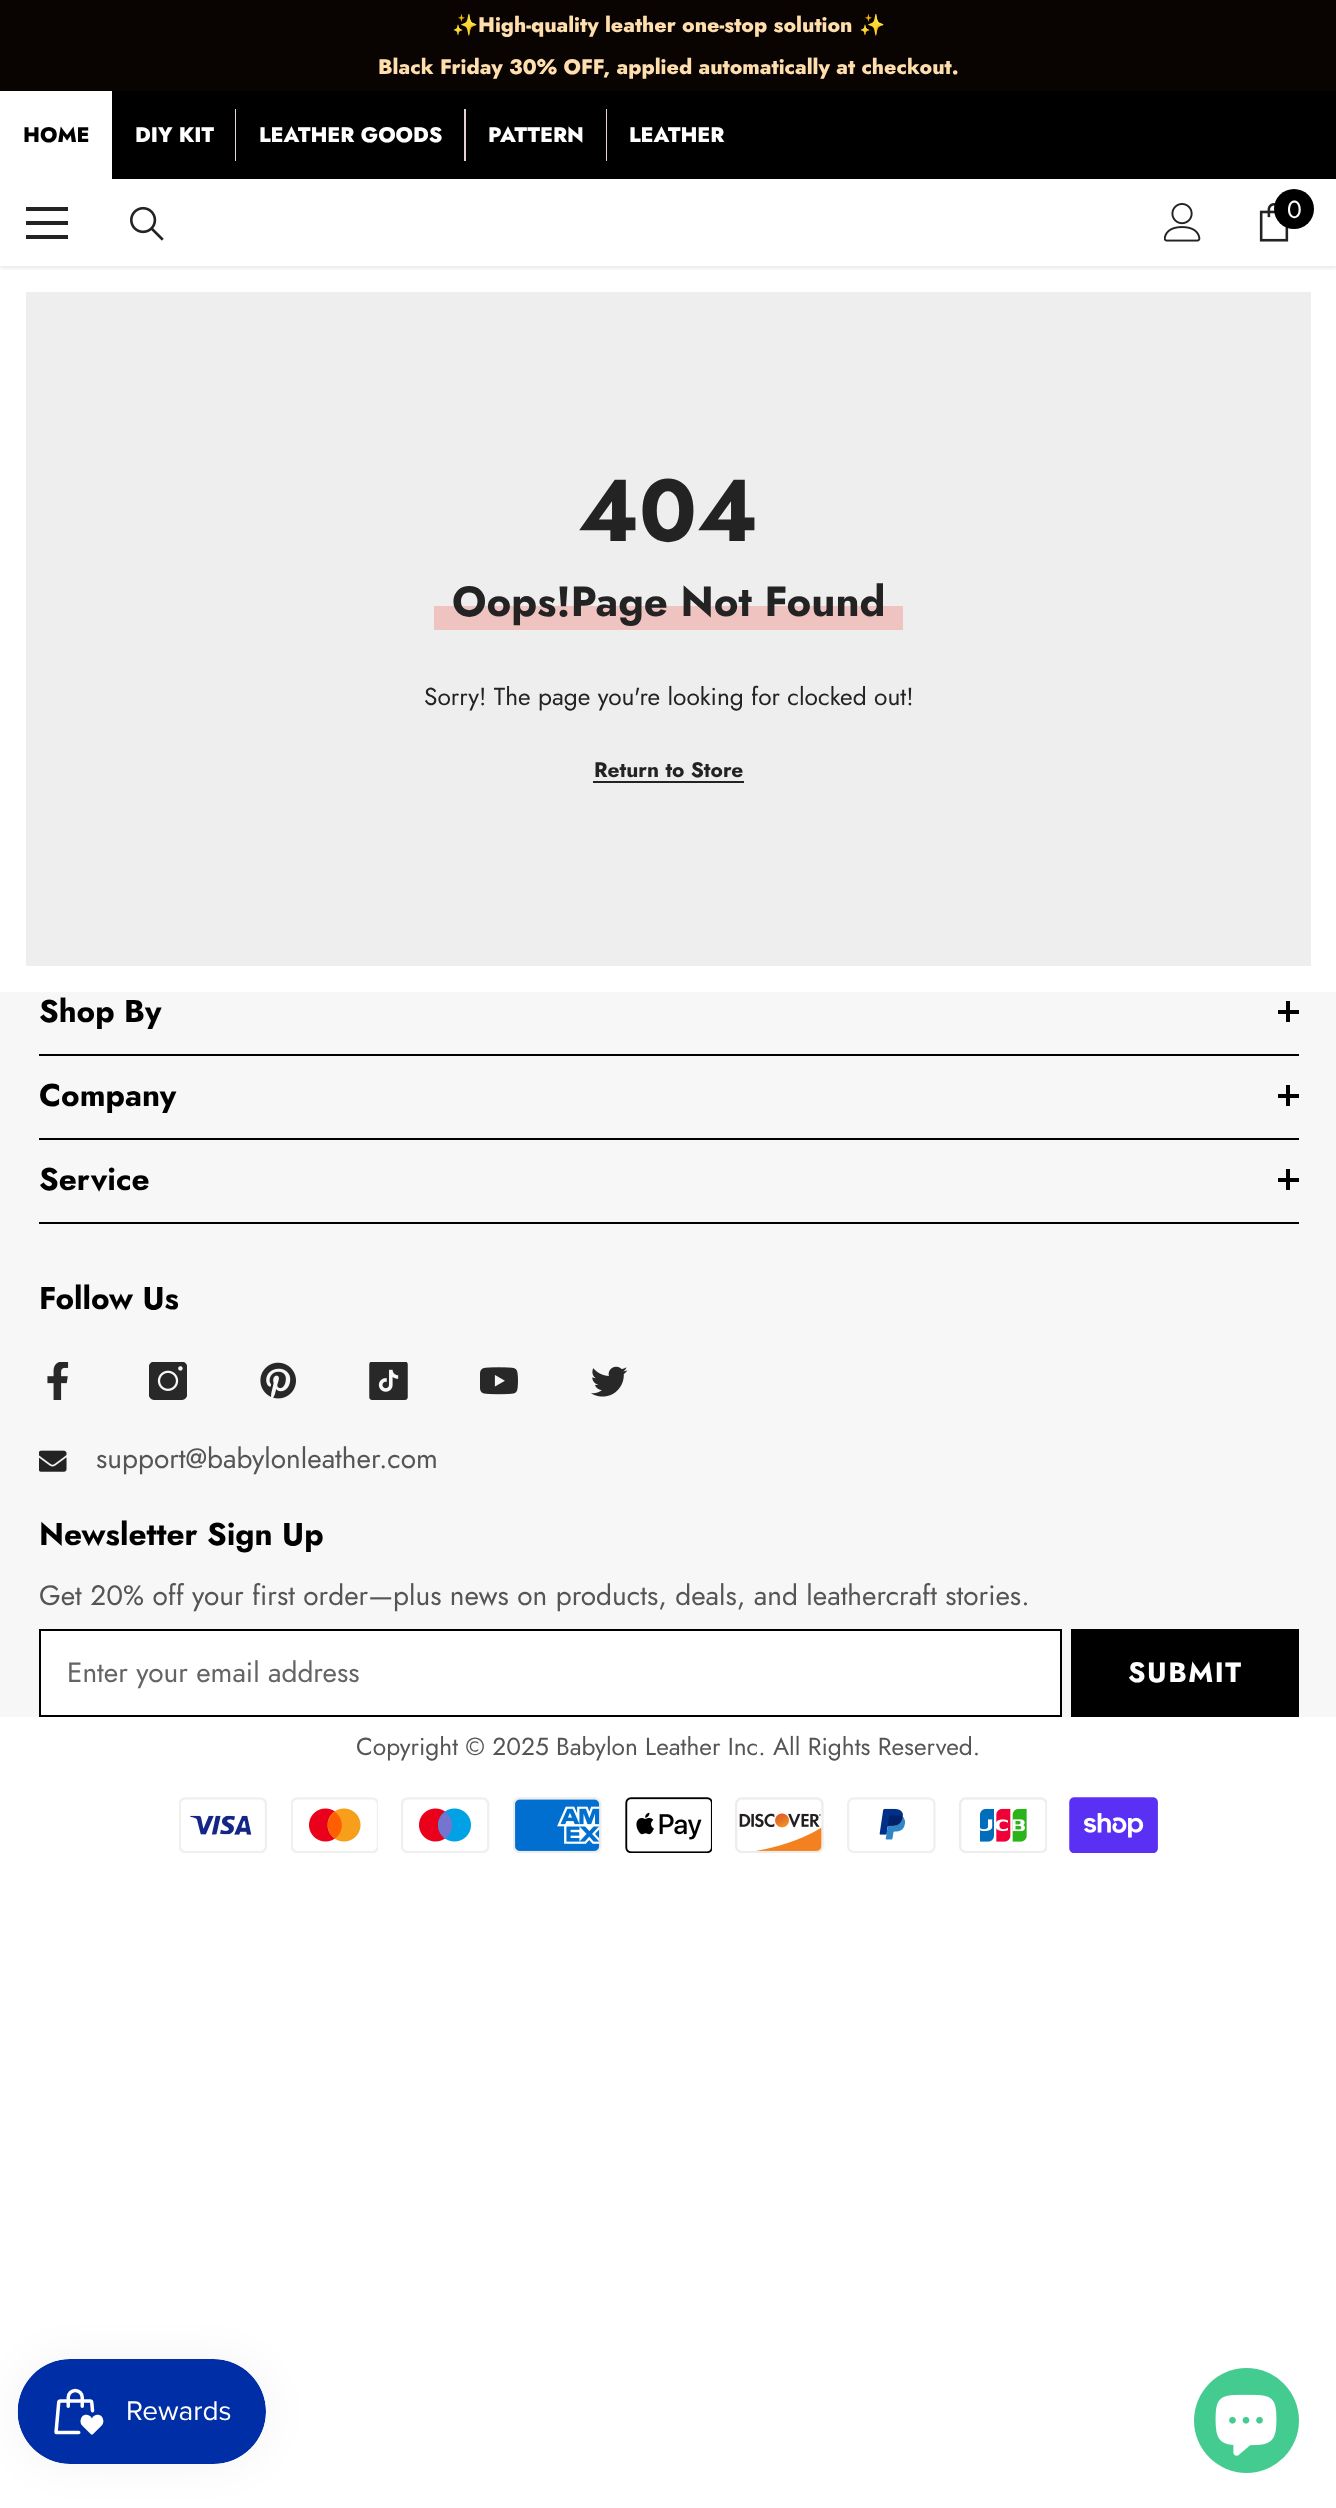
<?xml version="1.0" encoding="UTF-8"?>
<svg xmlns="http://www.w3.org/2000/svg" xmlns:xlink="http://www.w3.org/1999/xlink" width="1336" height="2508">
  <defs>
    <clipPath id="clip1"><rect x="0" y="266" width="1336" height="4" /></clipPath>
  </defs>
  <rect width="100%" height="100%" fill="#ffffff" />
  <rect width="1336" height="91" fill="#090401" />
  <g clip-path="url(#clip1)">
    <rect y="180" width="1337" height="88" fill="#000000" fill-opacity="0.1" filter="blur(2.5px)" />
  </g>
  <rect x="112" y="91" width="1224" height="88" fill="#000000" />
  <rect x="1" y="177" width="111" height="2" fill="#ffffff" />
  <rect x="235" y="109" width="1" height="52" fill="#e3d3d3" />
  <rect x="464" y="109" width="2" height="52" fill="#e3d3d3" />
  <rect x="606" y="109" width="1" height="52" fill="#e3d3d3" />
  <rect x="26" y="221" width="42" height="4" fill="#232323" />
  <rect x="26" y="207" width="42" height="4" fill="#232323" />
  <rect x="26" y="235" width="42" height="4" fill="#232323" />
  <image x="130" y="206" width="34" height="35" xlink:href="image1.png" />
  <image x="1164" y="203" width="37" height="39" xlink:href="image2.png" />
  <image x="1259" y="203" width="30" height="39" xlink:href="image3.png" />
  <circle cx="1294" cy="209" r="20" fill="#000000" />
  <rect x="26" y="292" width="1285" height="674" fill="#eeeeee" />
  <rect x="434" y="606" width="469" height="24" fill="#efc3c0" />
  <rect x="593" y="781" width="151" height="2" fill="#232323" />
  <rect y="992" width="1336" height="725" fill="#f7f7f7" />
  <rect x="39" y="1054" width="1260" height="2" fill="#000000" />
  <rect x="1286" y="1001" width="4" height="21" fill="#000000" />
  <rect x="1278" y="1010" width="21" height="4" fill="#000000" />
  <rect x="39" y="1138" width="1260" height="2" fill="#000000" />
  <rect x="1286" y="1085" width="4" height="21" fill="#000000" />
  <rect x="1278" y="1094" width="21" height="4" fill="#000000" />
  <rect x="39" y="1222" width="1260" height="2" fill="#000000" />
  <rect x="1286" y="1169" width="4" height="21" fill="#000000" />
  <rect x="1278" y="1178" width="21" height="4" fill="#000000" />
  <image x="47" y="1362" width="22" height="38" xlink:href="image4.png" />
  <image x="149" y="1362" width="38" height="38" xlink:href="image5.png" />
  <image x="260" y="1362" width="36" height="37" xlink:href="image6.png" />
  <image x="369" y="1362" width="39" height="38" xlink:href="image7.png" />
  <image x="480" y="1367" width="38" height="28" xlink:href="image8.png" />
  <image x="591" y="1366" width="37" height="31" xlink:href="image9.png" />
  <image x="39" y="1450" width="28" height="22" xlink:href="image10.png" />
  <rect x="40" y="1630" width="1021" height="86" fill="#ffffff" stroke="#000000" stroke-width="2" />
  <rect x="1071" y="1629" width="228" height="88" fill="#000000" />
  <image x="179" y="1797" width="88" height="56" xlink:href="image11.png" />
  <image x="291" y="1797" width="87" height="56" xlink:href="image12.png" />
  <image x="401" y="1797" width="89" height="56" xlink:href="image13.png" />
  <image x="513" y="1797" width="89" height="56" xlink:href="image14.png" />
  <image x="625" y="1797" width="87" height="56" xlink:href="image15.png" />
  <image x="735" y="1797" width="89" height="56" xlink:href="image16.png" />
  <image x="847" y="1797" width="89" height="56" xlink:href="image17.png" />
  <image x="959" y="1797" width="88" height="56" xlink:href="image18.png" />
  <image x="1069" y="1797" width="89" height="56" xlink:href="image19.png" />
  <rect x="18" y="2359" width="248" height="105" rx="52.5" fill="#000000" fill-opacity="0.05" filter="blur(22px)" />
  <image x="17" y="2359" width="249" height="105" xlink:href="image20.png" />
  <circle cx="1246.5" cy="2420.5" r="52.5" fill="#44cc90" />
  <image x="1215" y="2394" width="62" height="62" xlink:href="image21.png" />
  <text x="452" y="32" style="font-family: Noto Color Emoji; font-size: 21px; font-weight: bold; fill: #ffdead">✨</text>
  <text x="478" y="32" style="font-family: Jost; font-size: 21px; font-weight: 800; fill: #ffdead">High-quality leather one-stop solution</text>
  <text x="859" y="32" style="font-family: Noto Color Emoji; font-size: 21px; font-weight: bold; fill: #ffdead">✨</text>
  <text x="378" y="74" style="font-family: Jost; font-size: 21px; font-weight: 800; fill: #ffdead">Black Friday 30% OFF, applied automatically at checkout.</text>
  <text x="23" y="142" style="font-family: Jost; font-size: 21px; font-weight: 800; fill: #000000">HOME</text>
  <text x="135" y="142" style="font-family: Jost; font-size: 21px; font-weight: 800; fill: #ffffff">DIY KIT</text>
  <text x="259" y="142" style="font-family: Jost; font-size: 21px; font-weight: 800; fill: #ffffff">LEATHER GOODS</text>
  <text x="488" y="142" style="font-family: Jost; font-size: 21px; font-weight: 800; fill: #ffffff">PATTERN</text>
  <text x="629" y="142" style="font-family: Jost; font-size: 21px; font-weight: 800; fill: #ffffff">LEATHER</text>
  <text x="1287" y="218" style="font-family: Jost; font-size: 24.5px; fill: #ffffff">0</text>
  <text x="578" y="541" style="font-family: Jost; font-size: 87.5px; font-weight: bold; fill: #232323">404</text>
  <text x="452" y="616" style="font-family: Jost; font-size: 42px; font-weight: bold; fill: #232323">Oops!Page Not Found</text>
  <text x="424" y="705" style="font-family: Jost; font-size: 24.5px; fill: #232323">Sorry! The page you're looking for clocked out!</text>
  <text x="594" y="777" style="font-family: Jost; font-size: 21px; font-weight: bold; fill: #232323">Return to Store</text>
  <text x="39" y="1022" style="font-family: Jost; font-size: 31.5px; font-weight: bold; fill: #000000">Shop By</text>
  <text x="39" y="1106" style="font-family: Jost; font-size: 31.5px; font-weight: bold; fill: #000000">Company</text>
  <text x="39" y="1190" style="font-family: Jost; font-size: 31.5px; font-weight: bold; fill: #000000">Service</text>
  <text x="39" y="1309" style="font-family: Jost; font-size: 31.5px; font-weight: bold; fill: #000000">Follow Us</text>
  <text x="96" y="1468" style="font-family: Jost; font-size: 28px; fill: #555555">support@babylonleather.com</text>
  <text x="39" y="1545" style="font-family: Jost; font-size: 31.5px; font-weight: bold; fill: #000000">Newsletter Sign Up</text>
  <text x="39" y="1605" style="font-family: Jost; font-size: 28px; fill: #555555">Get 20% off your first order—plus news on products, deals, and leathercraft stories.</text>
  <text x="67" y="1682" style="font-family: Jost; font-size: 28px; fill: #646464">Enter your email address</text>
  <text x="1128" y="1682" style="font-family: Jost; font-size: 28px; font-weight: bold; letter-spacing: 1.5px; fill: #ffffff">SUBMIT</text>
  <text x="356" y="1755" style="font-family: Jost; font-size: 24.5px; fill: #555555">Copyright © 2025 Babylon Leather Inc. All Rights Reserved.</text>
</svg>
